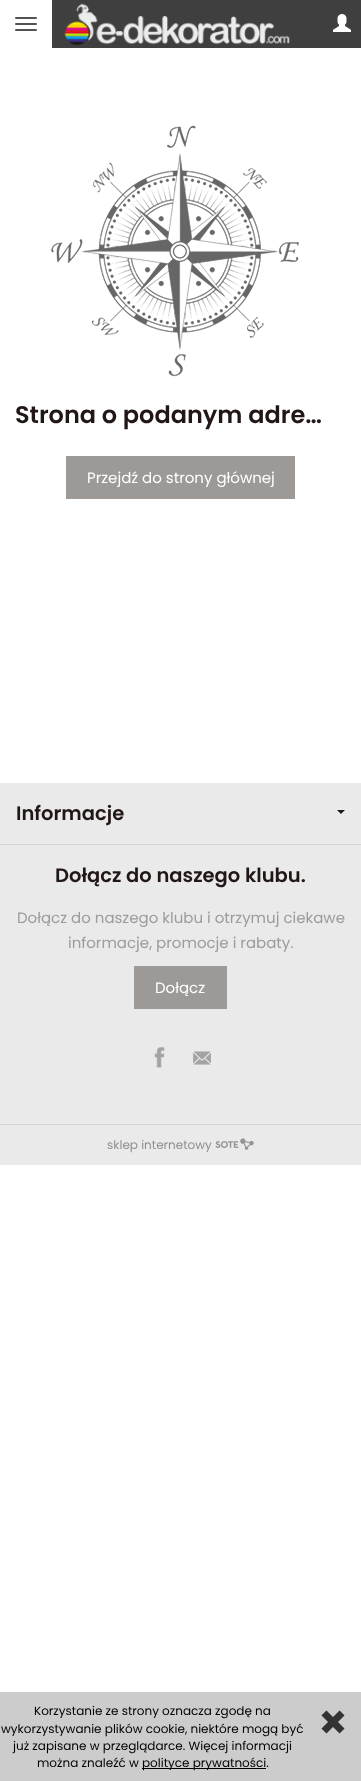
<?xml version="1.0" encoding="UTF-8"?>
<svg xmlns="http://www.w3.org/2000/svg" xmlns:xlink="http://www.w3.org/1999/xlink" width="361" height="1781">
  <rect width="100%" height="100%" fill="#ffffff" />
  <rect x="52" width="309" height="48" fill="#403f3f" />
  <rect x="15" y="17" width="22" height="2" rx="1" fill="#525252" />
  <rect x="15" y="23" width="22" height="2" rx="1" fill="#525252" />
  <rect x="15" y="29" width="22" height="2" rx="1" fill="#525252" />
  <image x="64" y="3" width="226" height="43" xlink:href="image1.png" />
  <image x="333" y="14" width="18" height="18" xlink:href="image2.png" />
  <image x="51" y="125" width="248" height="252" xlink:href="image3.png" />
  <rect x="66" y="456" width="229" height="43" fill="#9c9996" />
  <rect y="783" width="361" height="382" fill="#eaeaea" />
  <rect y="844" width="361" height="1" fill="#d5d5d5" />
  <path d="M 337 810 h 8 l -4 4 z" fill="#221717" />
  <rect x="134" y="966" width="93" height="43" fill="#9c9996" />
  <image x="154" y="1047" width="11" height="21" xlink:href="image4.png" />
  <image x="193" y="1051" width="18" height="14" xlink:href="image5.png" />
  <rect y="1124" width="361" height="1" fill="#d5d5d5" />
  <image x="215" y="1138" width="39" height="12" xlink:href="image6.png" />
  <rect y="1692" width="361" height="89" fill="#cccccc" />
  <rect x="142" y="1768" width="124" height="1" fill="#000000" />
  <image x="321" y="1710" width="24" height="24" xlink:href="image7.png" />
  <text x="15" y="423" style="font-family: Poppins; font-size: 24px; font-weight: 600; fill: #221717">Strona o podanym adre…</text>
  <text x="87" y="483" style="font-family: Poppins; font-size: 15px; fill: #ffffff">Przejdź do strony głównej</text>
  <text x="16" y="820" style="font-family: Poppins; font-size: 19.5px; font-weight: 600; fill: #221717">Informacje</text>
  <text x="55" y="882" style="font-family: Poppins; font-size: 19.5px; font-weight: 600; fill: #221717">Dołącz do naszego klubu.</text>
  <text x="17" y="923" style="font-family: Poppins; font-size: 15px; fill: #9e9b9b">Dołącz do naszego klubu i otrzymuj ciekawe</text>
  <text x="68" y="948" style="font-family: Poppins; font-size: 15px; fill: #9e9b9b">informacje, promocje i rabaty.</text>
  <text x="155" y="993" style="font-family: Poppins; font-size: 15px; fill: #ffffff">Dołącz</text>
  <text x="107" y="1149" style="font-family: Poppins; font-size: 12px; fill: #8f8f8f">sklep internetowy</text>
  <text x="34" y="1715" style="font-family: Poppins; font-size: 12px; fill: #000000">Korzystanie ze strony oznacza zgodę na</text>
  <text x="1" y="1733" style="font-family: Poppins; font-size: 12px; fill: #000000">wykorzystywanie plików cookie, niektóre mogą być</text>
  <text x="13" y="1750" style="font-family: Poppins; font-size: 12px; fill: #000000">już zapisane w przeglądarce. Więcej informacji</text>
  <text x="37" y="1767" style="font-family: Poppins; font-size: 12px; fill: #000000">można znaleźć w</text>
  <text x="142" y="1767" style="font-family: Poppins; font-size: 12px; fill: #000000">polityce prywatności.</text>
</svg>
